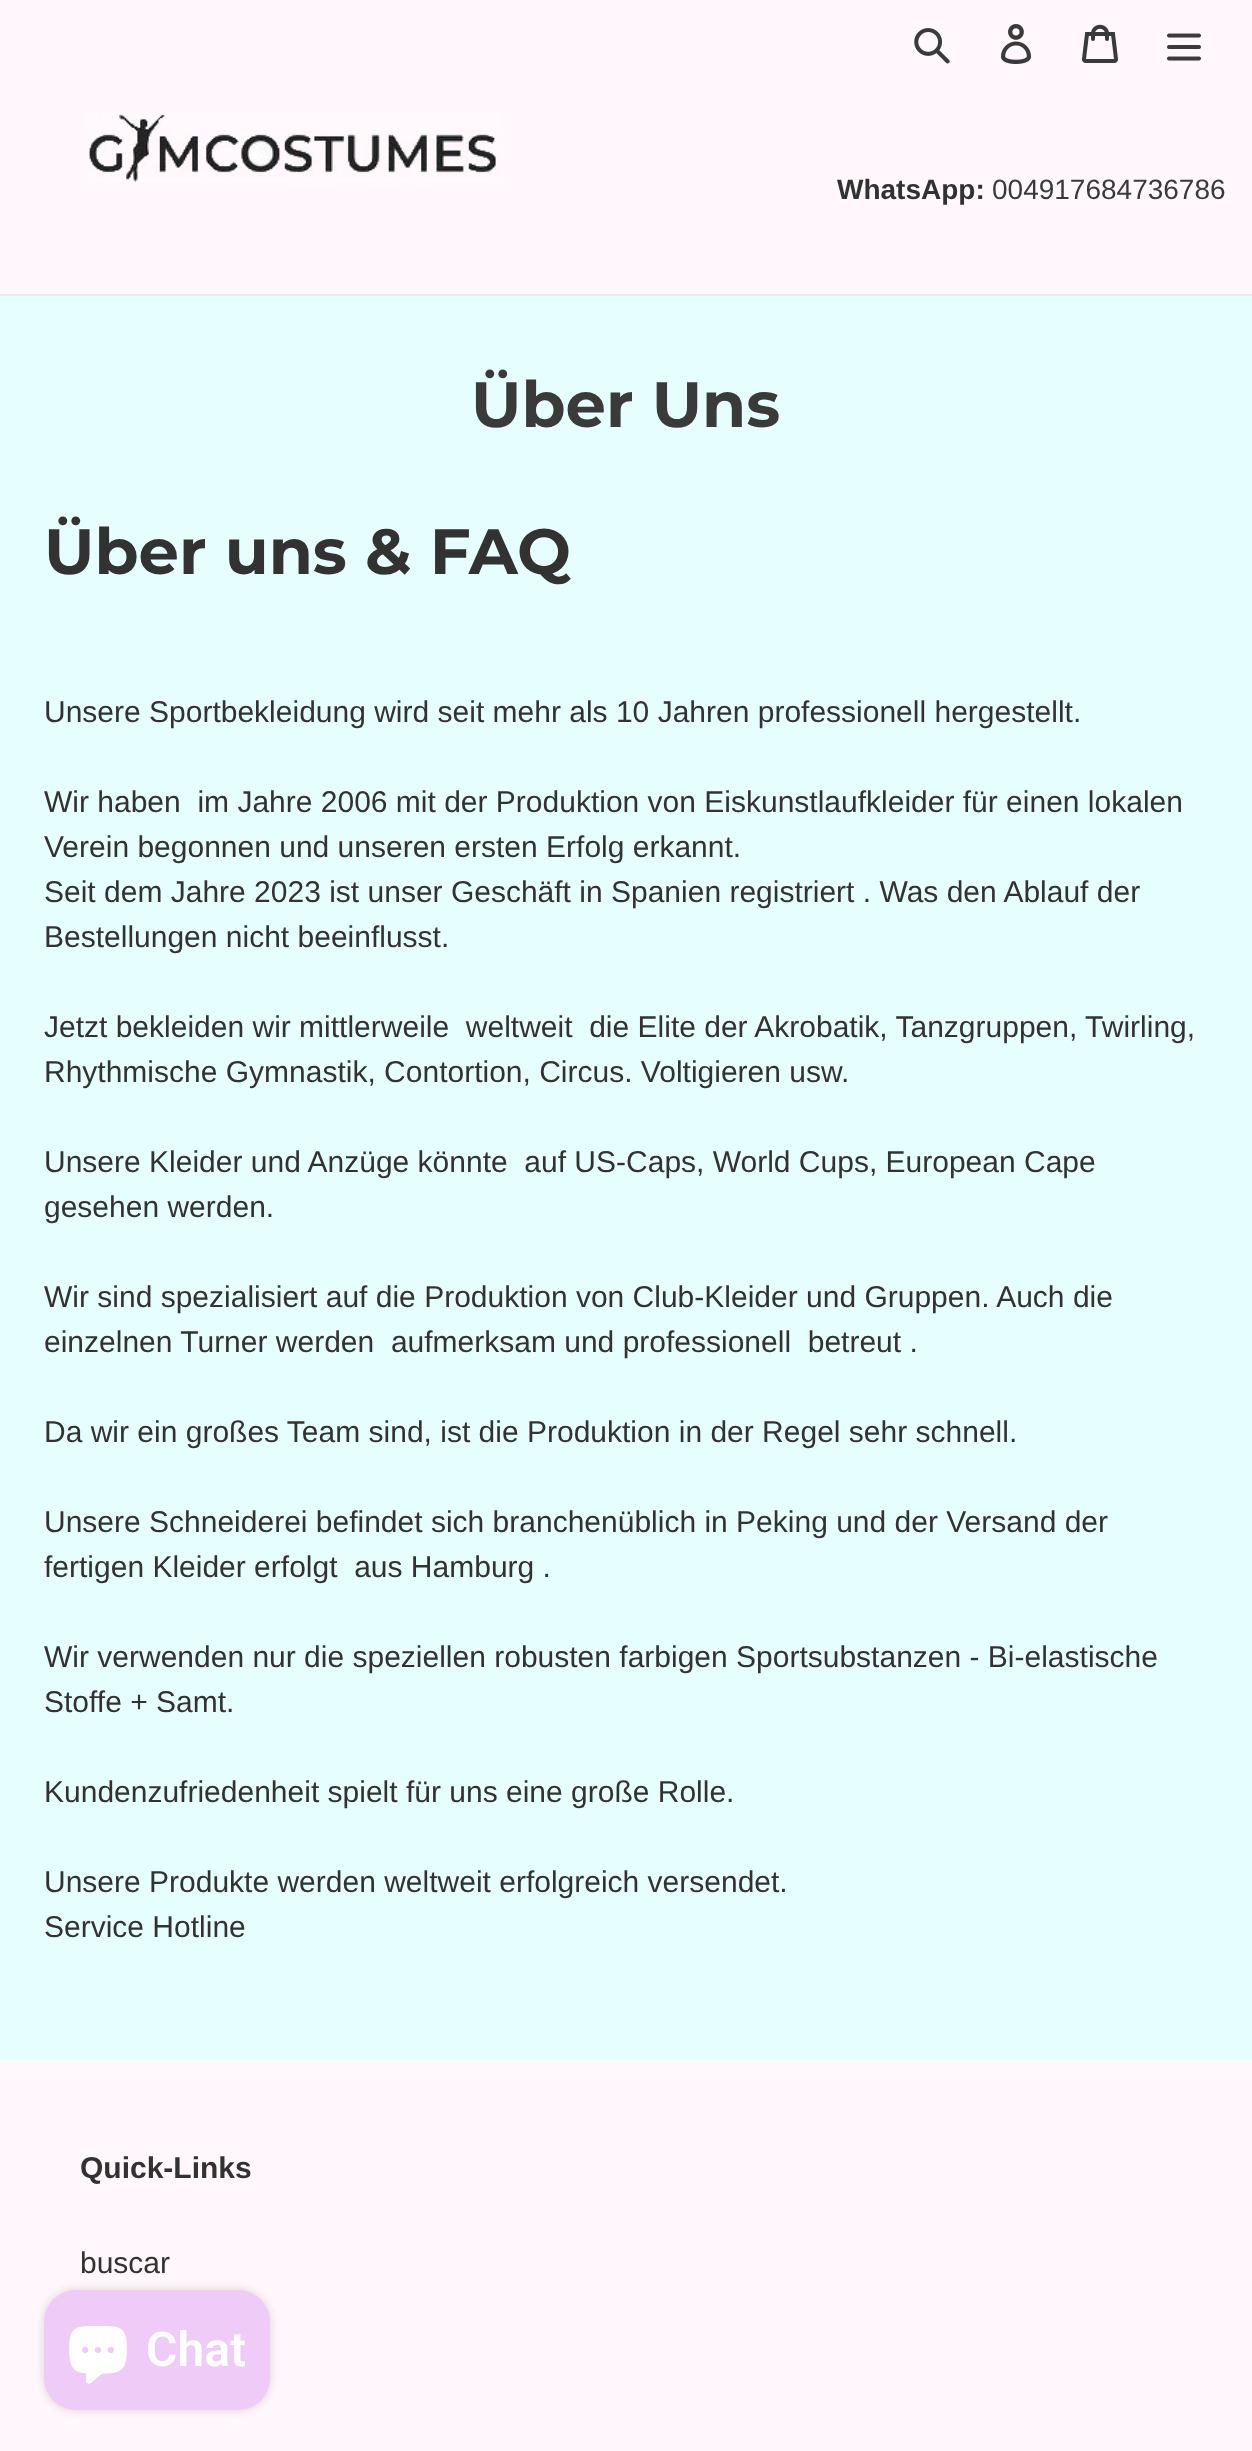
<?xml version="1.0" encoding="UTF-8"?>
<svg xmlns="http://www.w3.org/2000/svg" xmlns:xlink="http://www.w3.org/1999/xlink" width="1252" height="2451">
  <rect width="100%" height="100%" fill="#e6fffe" />
  <rect width="1252" height="294" fill="#fff7fb" />
  <rect y="294" width="1252" height="2" fill="#ebebeb" />
  <image x="89" y="114" width="410" height="68" xlink:href="image1.png" />
  <image x="914" y="28" width="36" height="36" xlink:href="image2.png" />
  <image x="1001" y="24" width="31" height="40" xlink:href="image3.png" />
  <image x="1082" y="24" width="36" height="39" xlink:href="image4.png" />
  <image x="1167" y="33" width="34" height="28" xlink:href="image5.png" />
  <rect y="2060" width="1252" height="391" fill="#fff7fb" />
  <rect x="44" y="2290" width="226" height="120" rx="32" fill="#000000" fill-opacity="0.15" filter="blur(5px)" />
  <rect x="44" y="2290" width="226" height="120" rx="32" fill="#eeccf7" />
  <image x="69" y="2326" width="58" height="58" xlink:href="image6.png" />
  <text x="837" y="199" style="font-family: Liberation Sans; font-size: 28px; font-weight: bold; fill: #333232">WhatsApp:</text>
  <text x="992" y="199" style="font-family: Liberation Sans; font-size: 28px; fill: #3a3a3a">004917684736786</text>
  <text x="471" y="427" style="font-family: Montserrat; font-size: 64px; font-weight: bold; fill: #3a3a3a">Über Uns</text>
  <text x="44" y="574" style="font-family: Montserrat; font-size: 64px; font-weight: bold; fill: #333232">Über uns &amp; FAQ</text>
  <text x="44" y="722" style="font-family: Liberation Sans; font-size: 30px; fill: #333232">Unsere Sportbekleidung wird seit mehr als 10 Jahren professionell hergestellt.</text>
  <text x="44" y="812" style="font-family: Liberation Sans; font-size: 30px; fill: #333232" xml:space="preserve">Wir haben  im Jahre 2006 mit der Produktion von Eiskunstlaufkleider für einen lokalen</text>
  <text x="44" y="857" style="font-family: Liberation Sans; font-size: 30px; fill: #333232">Verein begonnen und unseren ersten Erfolg erkannt.</text>
  <text x="44" y="902" style="font-family: Liberation Sans; font-size: 30px; fill: #333232">Seit dem Jahre 2023 ist unser Geschäft in Spanien registriert . Was den Ablauf der</text>
  <text x="44" y="947" style="font-family: Liberation Sans; font-size: 30px; fill: #333232">Bestellungen nicht beeinflusst.</text>
  <text x="44" y="1037" style="font-family: Liberation Sans; font-size: 30px; fill: #333232" xml:space="preserve">Jetzt bekleiden wir mittlerweile  weltweit  die Elite der Akrobatik, Tanzgruppen, Twirling,</text>
  <text x="44" y="1082" style="font-family: Liberation Sans; font-size: 30px; fill: #333232">Rhythmische Gymnastik, Contortion, Circus. Voltigieren usw.</text>
  <text x="44" y="1172" style="font-family: Liberation Sans; font-size: 30px; fill: #333232" xml:space="preserve">Unsere Kleider und Anzüge könnte  auf US-Caps, World Cups, European Cape</text>
  <text x="44" y="1217" style="font-family: Liberation Sans; font-size: 30px; fill: #333232">gesehen werden.</text>
  <text x="44" y="1307" style="font-family: Liberation Sans; font-size: 30px; fill: #333232">Wir sind spezialisiert auf die Produktion von Club-Kleider und Gruppen. Auch die</text>
  <text x="44" y="1352" style="font-family: Liberation Sans; font-size: 30px; fill: #333232" xml:space="preserve">einzelnen Turner werden  aufmerksam und professionell  betreut .</text>
  <text x="44" y="1442" style="font-family: Liberation Sans; font-size: 30px; fill: #333232">Da wir ein großes Team sind, ist die Produktion in der Regel sehr schnell.</text>
  <text x="44" y="1532" style="font-family: Liberation Sans; font-size: 30px; fill: #333232">Unsere Schneiderei befindet sich branchenüblich in Peking und der Versand der</text>
  <text x="44" y="1577" style="font-family: Liberation Sans; font-size: 30px; fill: #333232" xml:space="preserve">fertigen Kleider erfolgt  aus Hamburg .</text>
  <text x="44" y="1667" style="font-family: Liberation Sans; font-size: 30px; fill: #333232">Wir verwenden nur die speziellen robusten farbigen Sportsubstanzen - Bi-elastische</text>
  <text x="44" y="1712" style="font-family: Liberation Sans; font-size: 30px; fill: #333232">Stoffe + Samt.</text>
  <text x="44" y="1802" style="font-family: Liberation Sans; font-size: 30px; fill: #333232">Kundenzufriedenheit spielt für uns eine große Rolle.</text>
  <text x="44" y="1892" style="font-family: Liberation Sans; font-size: 30px; fill: #333232">Unsere Produkte werden weltweit erfolgreich versendet.</text>
  <text x="44" y="1937" style="font-family: Liberation Sans; font-size: 30px; fill: #333232">Service Hotline</text>
  <text x="80" y="2178" style="font-family: Liberation Sans; font-size: 30px; font-weight: bold; fill: #333232">Quick-Links</text>
  <text x="80" y="2273" style="font-family: Liberation Sans; font-size: 30px; fill: #333232">buscar</text>
  <text x="146" y="2366" style="font-family: Roboto; font-size: 48px; font-weight: 600; fill: #ffffff">Chat</text>
</svg>
